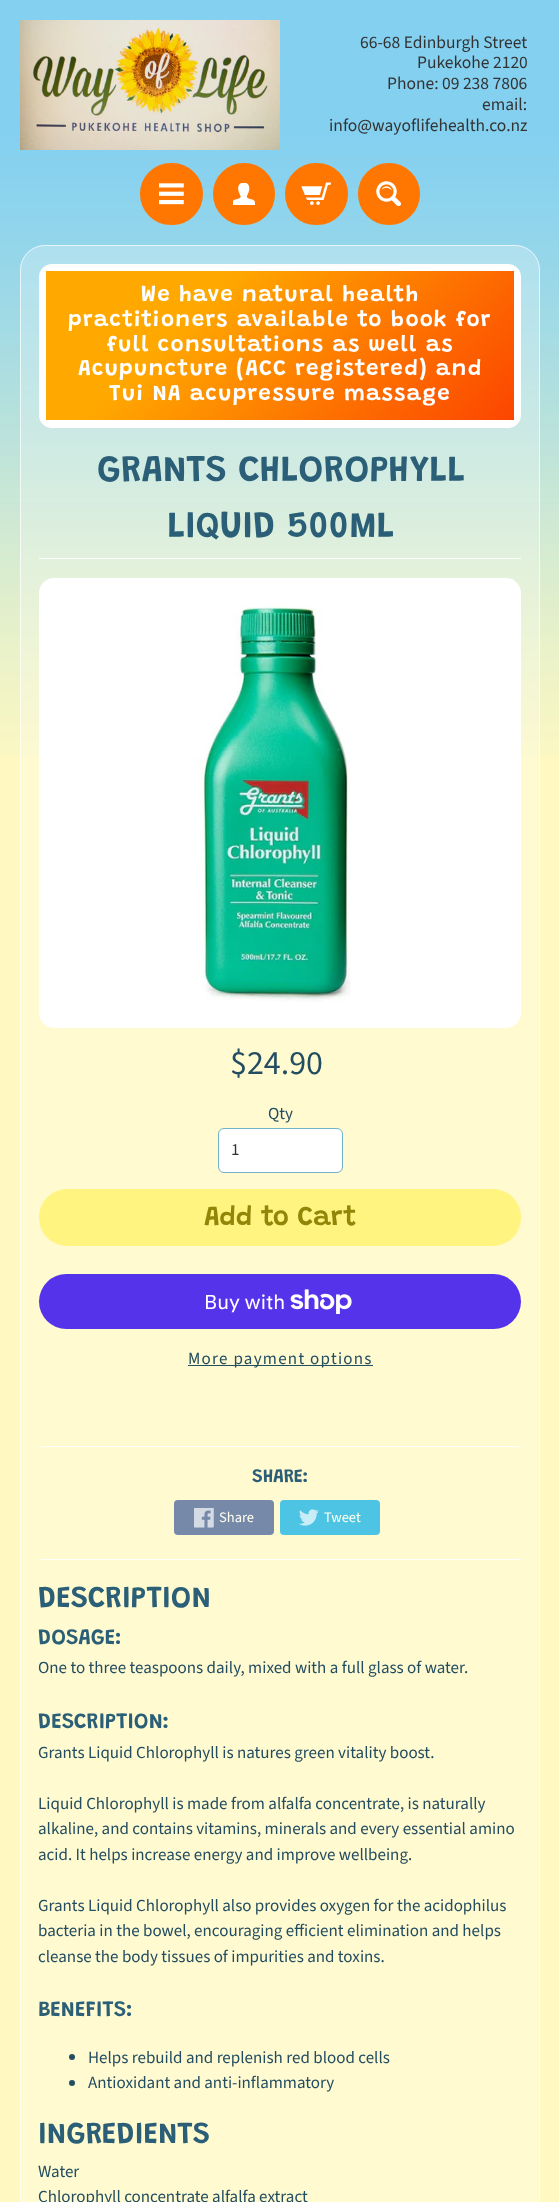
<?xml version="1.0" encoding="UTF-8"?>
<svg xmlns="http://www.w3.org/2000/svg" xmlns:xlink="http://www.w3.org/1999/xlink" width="559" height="2202">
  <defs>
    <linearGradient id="g1" gradientUnits="userSpaceOnUse" x1="126" y1="192" x2="434" y2="500"><stop offset="0.3" stop-color="#ffa800" /><stop offset="1" stop-color="#fc4500" /></linearGradient>
  </defs>
  <rect width="100%" height="100%" fill="#fff9c1" />
  <image x="0" y="0" width="559" height="756" xlink:href="image1.png" />
  <image x="20" y="20" width="260" height="130" xlink:href="image2.png" />
  <rect x="142" y="165" width="59" height="58" rx="29" fill="#ff7700" stroke="#ff7700" stroke-width="4" />
  <image x="159" y="183" width="25" height="22" xlink:href="image3.png" />
  <circle cx="244" cy="194" r="29" fill="#ff7700" stroke="#ff7700" stroke-width="4" />
  <image x="233" y="183" width="22" height="22" xlink:href="image4.png" />
  <rect x="287" y="165" width="59" height="58" rx="29" fill="#ff7700" stroke="#ff7700" stroke-width="4" />
  <image x="301" y="182" width="30" height="23" xlink:href="image5.png" />
  <circle cx="389" cy="194" r="29" fill="#ff7700" stroke="#ff7700" stroke-width="4" />
  <image x="376" y="181" width="25" height="25" xlink:href="image6.png" />
  <rect x="20" y="245" width="520" height="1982" rx="25" fill="#ffffff" fill-opacity="0.25" />
  <rect x="20.5" y="245.5" width="519" height="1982" rx="24.5" fill="none" stroke="#ffffff" stroke-opacity="0.7" />
  <rect x="39" y="264" width="482" height="164" rx="13" fill="#ffffff" />
  <rect x="46" y="271" width="468" height="149" fill="url(#g1)" />
  <rect x="39" y="558" width="482" height="1" fill="#ffffff" />
  <rect x="39" y="578" width="482" height="450" rx="15" fill="#ffffff" />
  <image x="196" y="606" width="155" height="396" xlink:href="image7.png" />
  <rect x="218.5" y="1128.5" width="124" height="44" rx="5.5" fill="#ffffff" stroke="#70b1cc" />
  <rect x="39" y="1189" width="482" height="57" rx="28" fill="#fff480" />
  <rect x="39" y="1274" width="482" height="55" rx="27.5" fill="#5433eb" />
  <image x="290" y="1289" width="62" height="25" xlink:href="image8.png" />
  <rect x="188" y="1365" width="185" height="1" fill="#234d61" />
  <rect x="39" y="1446" width="482" height="1" fill="#ffffff" />
  <rect x="174" y="1500" width="100" height="35" rx="4" fill="#7689a9" />
  <image x="194" y="1508" width="20" height="20" xlink:href="image9.png" />
  <rect x="280" y="1500" width="100" height="35" rx="4" fill="#4dc4e4" />
  <image x="299" y="1509" width="20" height="17" xlink:href="image10.png" />
  <rect x="39" y="1559" width="482" height="1" fill="#ffffff" />
  <circle cx="72" cy="2057" r="3" fill="#234d61" />
  <circle cx="72" cy="2083" r="3" fill="#234d61" />
  <text x="360" y="48" style="font-family: Source Sans Pro; font-size: 17.5px; fill: #333333">66-68 Edinburgh Street</text>
  <text x="417" y="68" style="font-family: Source Sans Pro; font-size: 17.5px; fill: #333333">Pukekohe 2120</text>
  <text x="387" y="89" style="font-family: Source Sans Pro; font-size: 17.5px; fill: #333333">Phone: 09 238 7806</text>
  <text x="482" y="110" style="font-family: Source Sans Pro; font-size: 17.5px; fill: #333333">email:</text>
  <text x="329" y="131" style="font-family: Source Sans Pro; font-size: 17.5px; fill: #333333">info@wayoflifehealth.co.nz</text>
  <text x="141" y="301" style="font-family: Grandstander; font-size: 22.4px; font-weight: 600; letter-spacing: 1.25px; fill: #ffffff">We have natural health</text>
  <text x="68" y="326" style="font-family: Grandstander; font-size: 22.4px; font-weight: 600; letter-spacing: 1.25px; fill: #ffffff">practitioners available to book for</text>
  <text x="107" y="351" style="font-family: Grandstander; font-size: 22.4px; font-weight: 600; letter-spacing: 1.25px; fill: #ffffff">full consultations as well as</text>
  <text x="78" y="375" style="font-family: Grandstander; font-size: 22.4px; font-weight: 600; letter-spacing: 1.25px; fill: #ffffff">Acupuncture (ACC registered) and</text>
  <text x="109" y="400" style="font-family: Grandstander; font-size: 22.4px; font-weight: 600; letter-spacing: 1.25px; fill: #ffffff">Tui NA acupressure massage</text>
  <text x="97" y="481" style="font-family: Grandstander; font-size: 37.5px; font-weight: 600; fill: #2b5f77">GRANTS CHLOROPHYLL</text>
  <text x="167" y="537" style="font-family: Grandstander; font-size: 37.5px; font-weight: 600; fill: #2b5f77">LIQUID 500ML</text>
  <text x="230" y="1074" style="font-family: Source Sans Pro; font-size: 34px; fill: #234d61">$24.90</text>
  <text x="268" y="1119" style="font-family: Source Sans Pro; font-size: 17px; fill: #234d61">Qty</text>
  <text x="231" y="1155" style="font-family: Source Sans Pro; font-size: 17px; fill: #333333">1</text>
  <text x="204" y="1225" style="font-family: Grandstander; font-size: 27.5px; font-weight: 600; fill: #918608">Add to Cart</text>
  <text x="204" y="1309" style="font-family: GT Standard; font-size: 20px; fill: #ffffff">Buy with</text>
  <text x="188" y="1364" style="font-family: Source Sans Pro; font-size: 17px; letter-spacing: 1.25px; fill: #234d61">More payment options</text>
  <text x="252" y="1482" style="font-family: Grandstander; font-size: 19px; font-weight: 600; fill: #2b5f77">SHARE:</text>
  <text x="219" y="1522" style="font-family: Source Sans Pro; font-size: 14.5px; fill: #fffef1">Share</text>
  <text x="324" y="1522" style="font-family: Source Sans Pro; font-size: 14.5px; fill: #fffef1">Tweet</text>
  <text x="38" y="1607" style="font-family: Grandstander; font-size: 30.5px; font-weight: 600; fill: #2b5f77">DESCRIPTION</text>
  <text x="38" y="1644" style="font-family: Grandstander; font-size: 22px; font-weight: 600; fill: #2b5f77">DOSAGE:</text>
  <text x="38" y="1673" style="font-family: Source Sans Pro; font-size: 17px; fill: #234d61">One to three teaspoons daily, mixed with a full glass of water.</text>
  <text x="38" y="1728" style="font-family: Grandstander; font-size: 22px; font-weight: 600; fill: #2b5f77">DESCRIPTION:</text>
  <text x="38" y="1758" style="font-family: Source Sans Pro; font-size: 17px; fill: #234d61">Grants Liquid Chlorophyll is natures green vitality boost.</text>
  <text x="38" y="1809" style="font-family: Source Sans Pro; font-size: 17px; fill: #234d61">Liquid Chlorophyll is made from alfalfa concentrate, is naturally</text>
  <text x="38" y="1834" style="font-family: Source Sans Pro; font-size: 17px; fill: #234d61">alkaline, and contains vitamins, minerals and every essential amino</text>
  <text x="38" y="1860" style="font-family: Source Sans Pro; font-size: 17px; fill: #234d61">acid. It helps increase energy and improve wellbeing.</text>
  <text x="38" y="1911" style="font-family: Source Sans Pro; font-size: 17px; fill: #234d61">Grants Liquid Chlorophyll also provides oxygen for the acidophilus</text>
  <text x="38" y="1936" style="font-family: Source Sans Pro; font-size: 17px; fill: #234d61">bacteria in the bowel, encouraging efficient elimination and helps</text>
  <text x="38" y="1962" style="font-family: Source Sans Pro; font-size: 17px; fill: #234d61">cleanse the body tissues of impurities and toxins.</text>
  <text x="38" y="2016" style="font-family: Grandstander; font-size: 22px; font-weight: 600; fill: #2b5f77">BENEFITS:</text>
  <text x="88" y="2063" style="font-family: Source Sans Pro; font-size: 17px; fill: #234d61">Helps rebuild and replenish red blood cells</text>
  <text x="88" y="2088" style="font-family: Source Sans Pro; font-size: 17px; fill: #234d61">Antioxidant and anti-inflammatory</text>
  <text x="38" y="2143" style="font-family: Grandstander; font-size: 30.5px; font-weight: 600; fill: #2b5f77">INGREDIENTS</text>
  <text x="38" y="2177" style="font-family: Source Sans Pro; font-size: 17px; fill: #234d61">Water</text>
  <text x="38" y="2202" style="font-family: Source Sans Pro; font-size: 17px; fill: #234d61">Chlorophyll concentrate alfalfa extract</text>
</svg>
